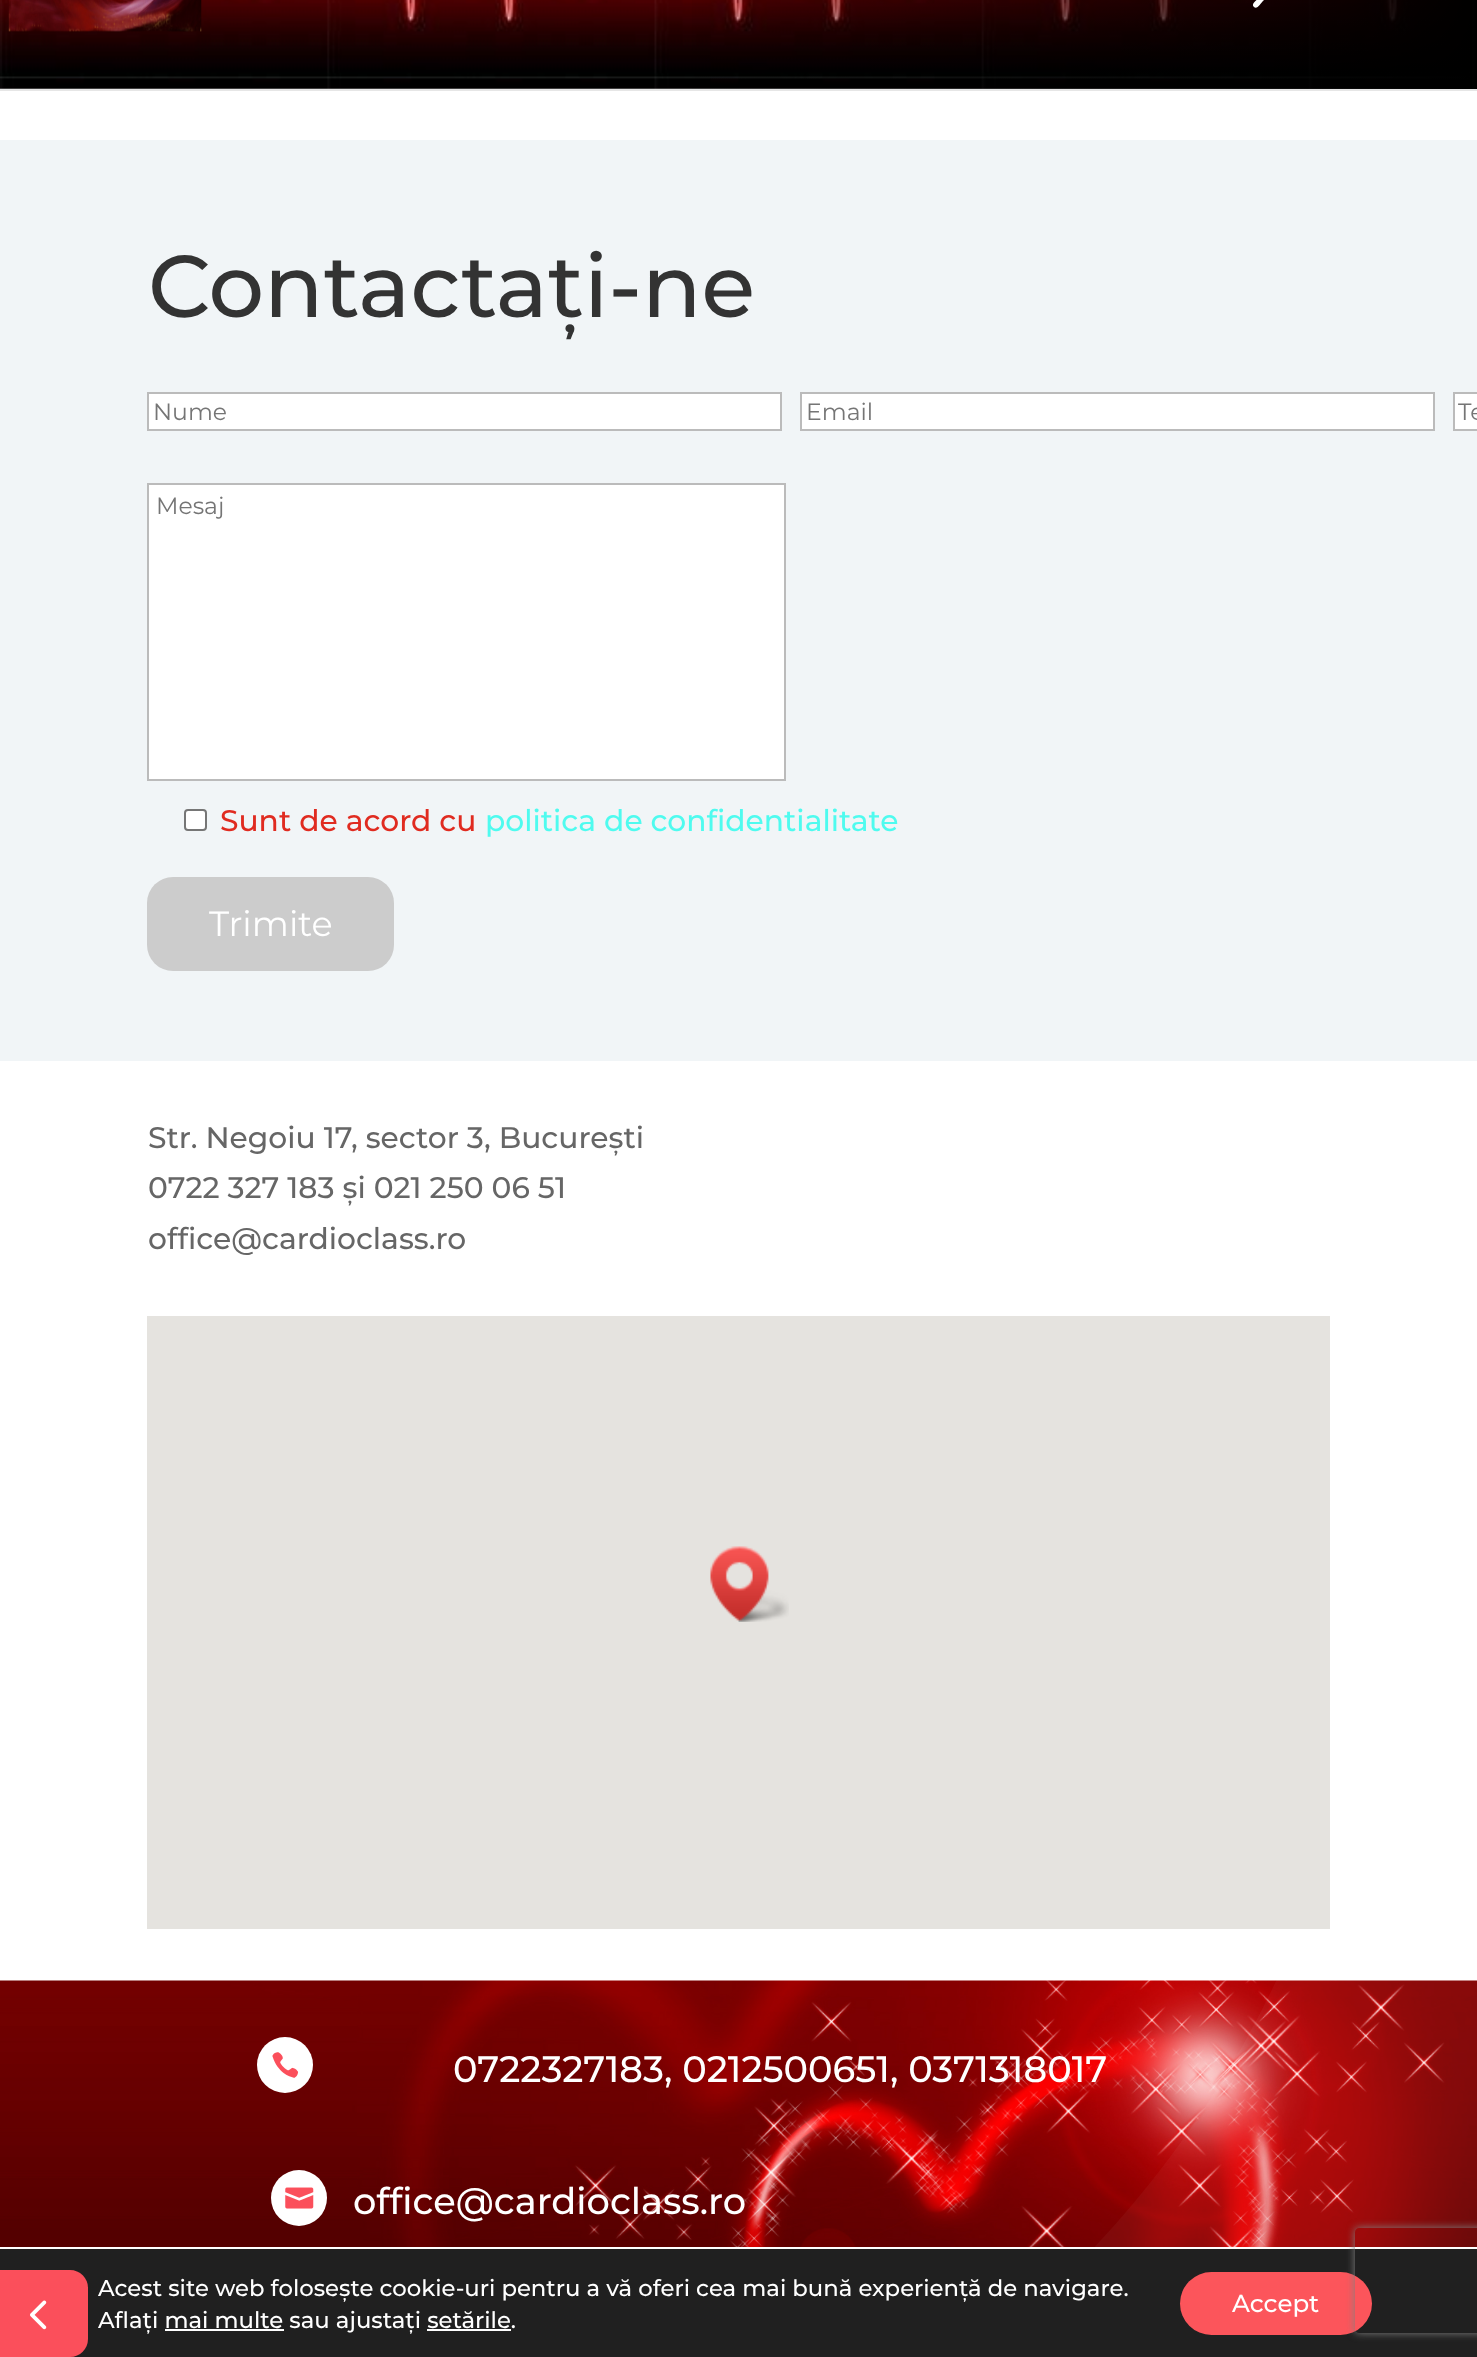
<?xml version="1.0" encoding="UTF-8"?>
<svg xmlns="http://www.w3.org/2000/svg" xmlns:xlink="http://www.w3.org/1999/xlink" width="1477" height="2357">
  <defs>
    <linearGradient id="g1" gradientUnits="userSpaceOnUse" x1="0" y1="-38" x2="1477" y2="-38"><stop offset="0.45" stop-color="#000000" stop-opacity="0" /><stop offset="1" stop-color="#000000" /></linearGradient>
    <clipPath id="clip1"><path d="M 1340 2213 h 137 v 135 h -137 z m 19 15 h 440 c 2 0 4 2 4 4 v 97 c 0 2 -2 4 -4 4 h -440 c -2 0 -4 -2 -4 -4 v -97 c 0 -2 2 -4 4 -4 z" clip-rule="evenodd" /></clipPath>
  </defs>
  <rect width="100%" height="100%" fill="#ffffff" />
  <rect y="89" width="1477" height="2" fill="#e6e6e6" />
  <image x="0" y="0" width="1472" height="89" xlink:href="image1.png" />
  <rect x="692" width="785" height="89" fill="url(#g1)" />
  <image x="8" y="0" width="194" height="32" xlink:href="image2.png" />
  <path d="M 1289 -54 c -21 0 -32 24 -19 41 l -11 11 c -1 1 -9 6 -5 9 c 3 3 7 -4 9 -6 l 11 -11 c 5 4 11 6 18 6 c 31 -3 29 -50 -3 -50 z m 0 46 c -27 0 -27 -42 0 -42 c 28 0 28 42 0 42 z" fill="#ffffff" />
  <rect y="140" width="1477" height="921" fill="#f1f5f7" />
  <rect x="148" y="393" width="633" height="37" fill="#ffffff" stroke="#bbbbbb" stroke-width="2" />
  <rect x="801" y="393" width="633" height="37" fill="#ffffff" stroke="#bbbbbb" stroke-width="2" />
  <rect x="1454" y="393" width="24" height="37" fill="#ffffff" stroke="#bbbbbb" stroke-width="2" />
  <rect x="148" y="484" width="637" height="296" fill="#ffffff" stroke="#bbbbbb" stroke-width="2" />
  <rect x="185" y="810" width="21" height="20" rx="3" fill="#ffffff" stroke="#767676" stroke-width="2" />
  <rect x="147" y="877" width="247" height="94" rx="26" fill="#cccccc" />
  <rect x="147" y="1316" width="1183" height="613" fill="#e5e3df" />
  <image x="710" y="1546" width="79" height="76" xlink:href="image3.png" />
  <image x="0" y="1980" width="1477" height="267" xlink:href="image4.png" />
  <circle cx="285" cy="2065" r="28" fill="#ffffff" />
  <image x="272" y="2052" width="27" height="26" xlink:href="image5.png" />
  <circle cx="299" cy="2198" r="28" fill="#ffffff" />
  <image x="285" y="2187" width="29" height="22" xlink:href="image6.png" />
  <image x="1095" y="1980" width="382" height="267" xlink:href="image7.png" />
  <rect y="2249" width="1477" height="108" fill="#202020" />
  <path d="M 0 2270 h 70 c 10 0 18 8 18 18 v 51 c 0 10 -8 18 -18 18 h -70 z" fill="#fb4f5b" />
  <image x="30" y="2300" width="17" height="30" xlink:href="image8.png" />
  <rect x="165" y="2329" width="119" height="2" fill="#ffffff" />
  <rect x="427" y="2329" width="84" height="2" fill="#ffffff" />
  <rect x="1180" y="2272" width="192" height="63" rx="31.5" fill="#fc555b" />
  <g clip-path="url(#clip1)">
    <rect x="1355" y="2228" width="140" height="105" rx="4" fill="#808080" filter="blur(4.5px)" />
  </g>
  <text x="148" y="317" style="font-family: Montserrat; font-size: 87.5px; font-weight: 500; fill: #333333">Contactați-ne</text>
  <text x="153" y="420" style="font-family: Montserrat; font-size: 23.5px; fill: #757575">Nume</text>
  <text x="806" y="420" style="font-family: Montserrat; font-size: 23.5px; fill: #757575">Email</text>
  <text x="1458" y="420" style="font-family: Montserrat; font-size: 23.5px; fill: #757575">Te</text>
  <text x="156" y="514" style="font-family: Montserrat; font-size: 23.5px; fill: #757575">Mesaj</text>
  <text x="220" y="831" style="font-family: Montserrat; font-size: 29.75px; font-weight: 500; fill: #e02b20">Sunt de acord cu</text>
  <text x="485" y="831" style="font-family: Montserrat; font-size: 29.75px; font-weight: 500; fill: #4ffbef">politica de confidentialitate</text>
  <text x="209" y="936" style="font-family: Montserrat; font-size: 35px; fill: #ffffff">Trimite</text>
  <text x="148" y="1148" style="font-family: Montserrat; font-size: 29.75px; font-weight: 500; fill: #666666">Str. Negoiu 17, sector 3, București</text>
  <text x="148" y="1198" style="font-family: Montserrat; font-size: 29.75px; font-weight: 500; fill: #666666">0722 327 183 și 021 250 06 51</text>
  <text x="148" y="1249" style="font-family: Montserrat; font-size: 29.75px; font-weight: 500; fill: #666666">office@cardioclass.ro</text>
  <text x="453" y="2082" style="font-family: Montserrat; font-size: 36.75px; font-weight: 500; fill: #ffffff">0722327183, 0212500651, 0371318017</text>
  <text x="353" y="2214" style="font-family: Montserrat; font-size: 36.75px; font-weight: 500; fill: #ffffff">office@cardioclass.ro</text>
  <text x="98" y="2296" style="font-family: Montserrat; font-size: 22.75px; font-weight: 500; fill: #ffffff">Acest site web folosește cookie-uri pentru a vă oferi cea mai bună experiență de navigare.</text>
  <text x="98" y="2328" style="font-family: Montserrat; font-size: 22.75px; font-weight: 500; fill: #ffffff">Aflați mai multe sau ajustați setările.</text>
  <text x="1232" y="2312" style="font-family: Montserrat; font-size: 24.5px; font-weight: 500; fill: #ffffff">Accept</text>
</svg>
